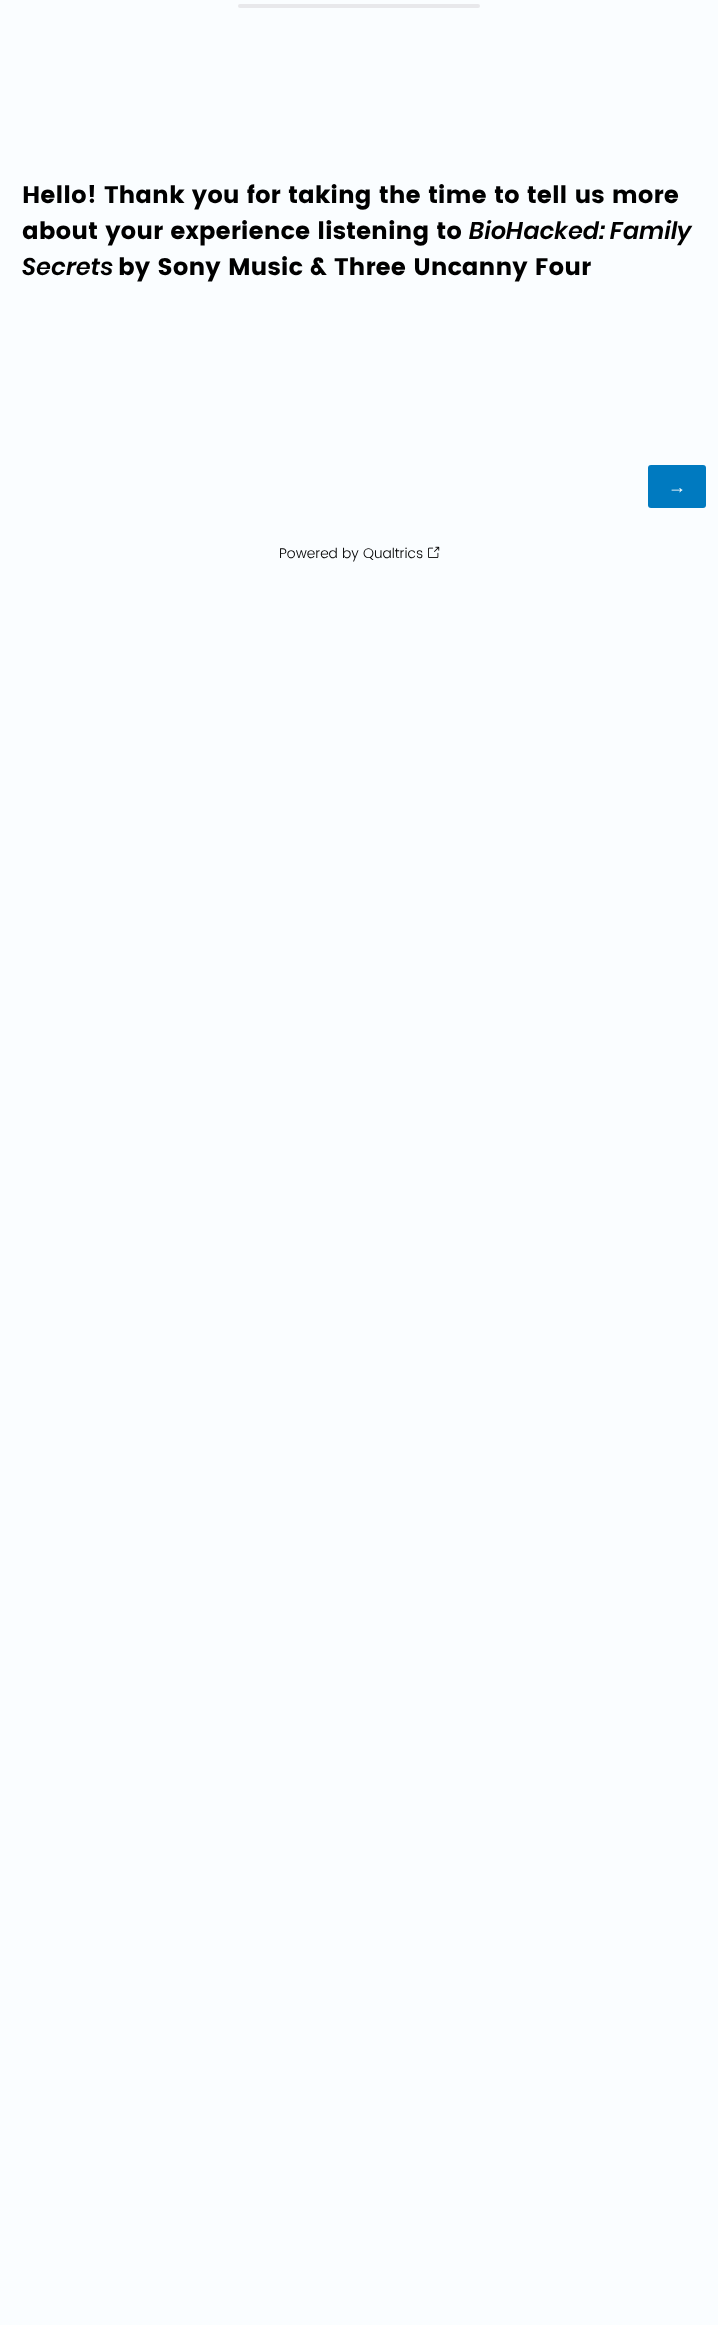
<?xml version="1.0" encoding="UTF-8"?>
<svg xmlns="http://www.w3.org/2000/svg" xmlns:xlink="http://www.w3.org/1999/xlink" width="718" height="2325">
  <rect width="100%" height="100%" fill="#fafdff" />
  <rect x="238" y="4" width="242" height="4" rx="2" fill="#e8e8eb" />
  <rect x="648" y="465" width="58" height="43" rx="3" fill="#007ac0" />
  <image x="428" y="546" width="12" height="12" xlink:href="image1.png" />
  <text x="22" y="203" style="font-family: Poppins; font-size: 24px; font-weight: bold; fill: #000000">Hello! Thank you for taking the time to tell us more</text>
  <text x="22" y="239" style="font-family: Poppins; font-size: 24px; font-weight: bold; fill: #000000">about your experience listening to</text>
  <text x="469" y="239" style="font-family: Poppins; font-size: 24px; font-weight: 600; font-style: italic; fill: #000000">BioHacked: Family</text>
  <text x="22" y="275" style="font-family: Poppins; font-size: 24px; font-weight: 600; font-style: italic; fill: #000000">Secrets</text>
  <text x="118" y="275" style="font-family: Poppins; font-size: 24px; font-weight: bold; fill: #000000">by Sony Music &amp; Three Uncanny Four</text>
  <text x="668" y="493" style="font-family: Liberation Sans; font-size: 18px; fill: #ffffff">→</text>
  <text x="279" y="558" style="font-family: Poppins; font-size: 14px; font-weight: 300; fill: #000000">Powered by Qualtrics</text>
</svg>
